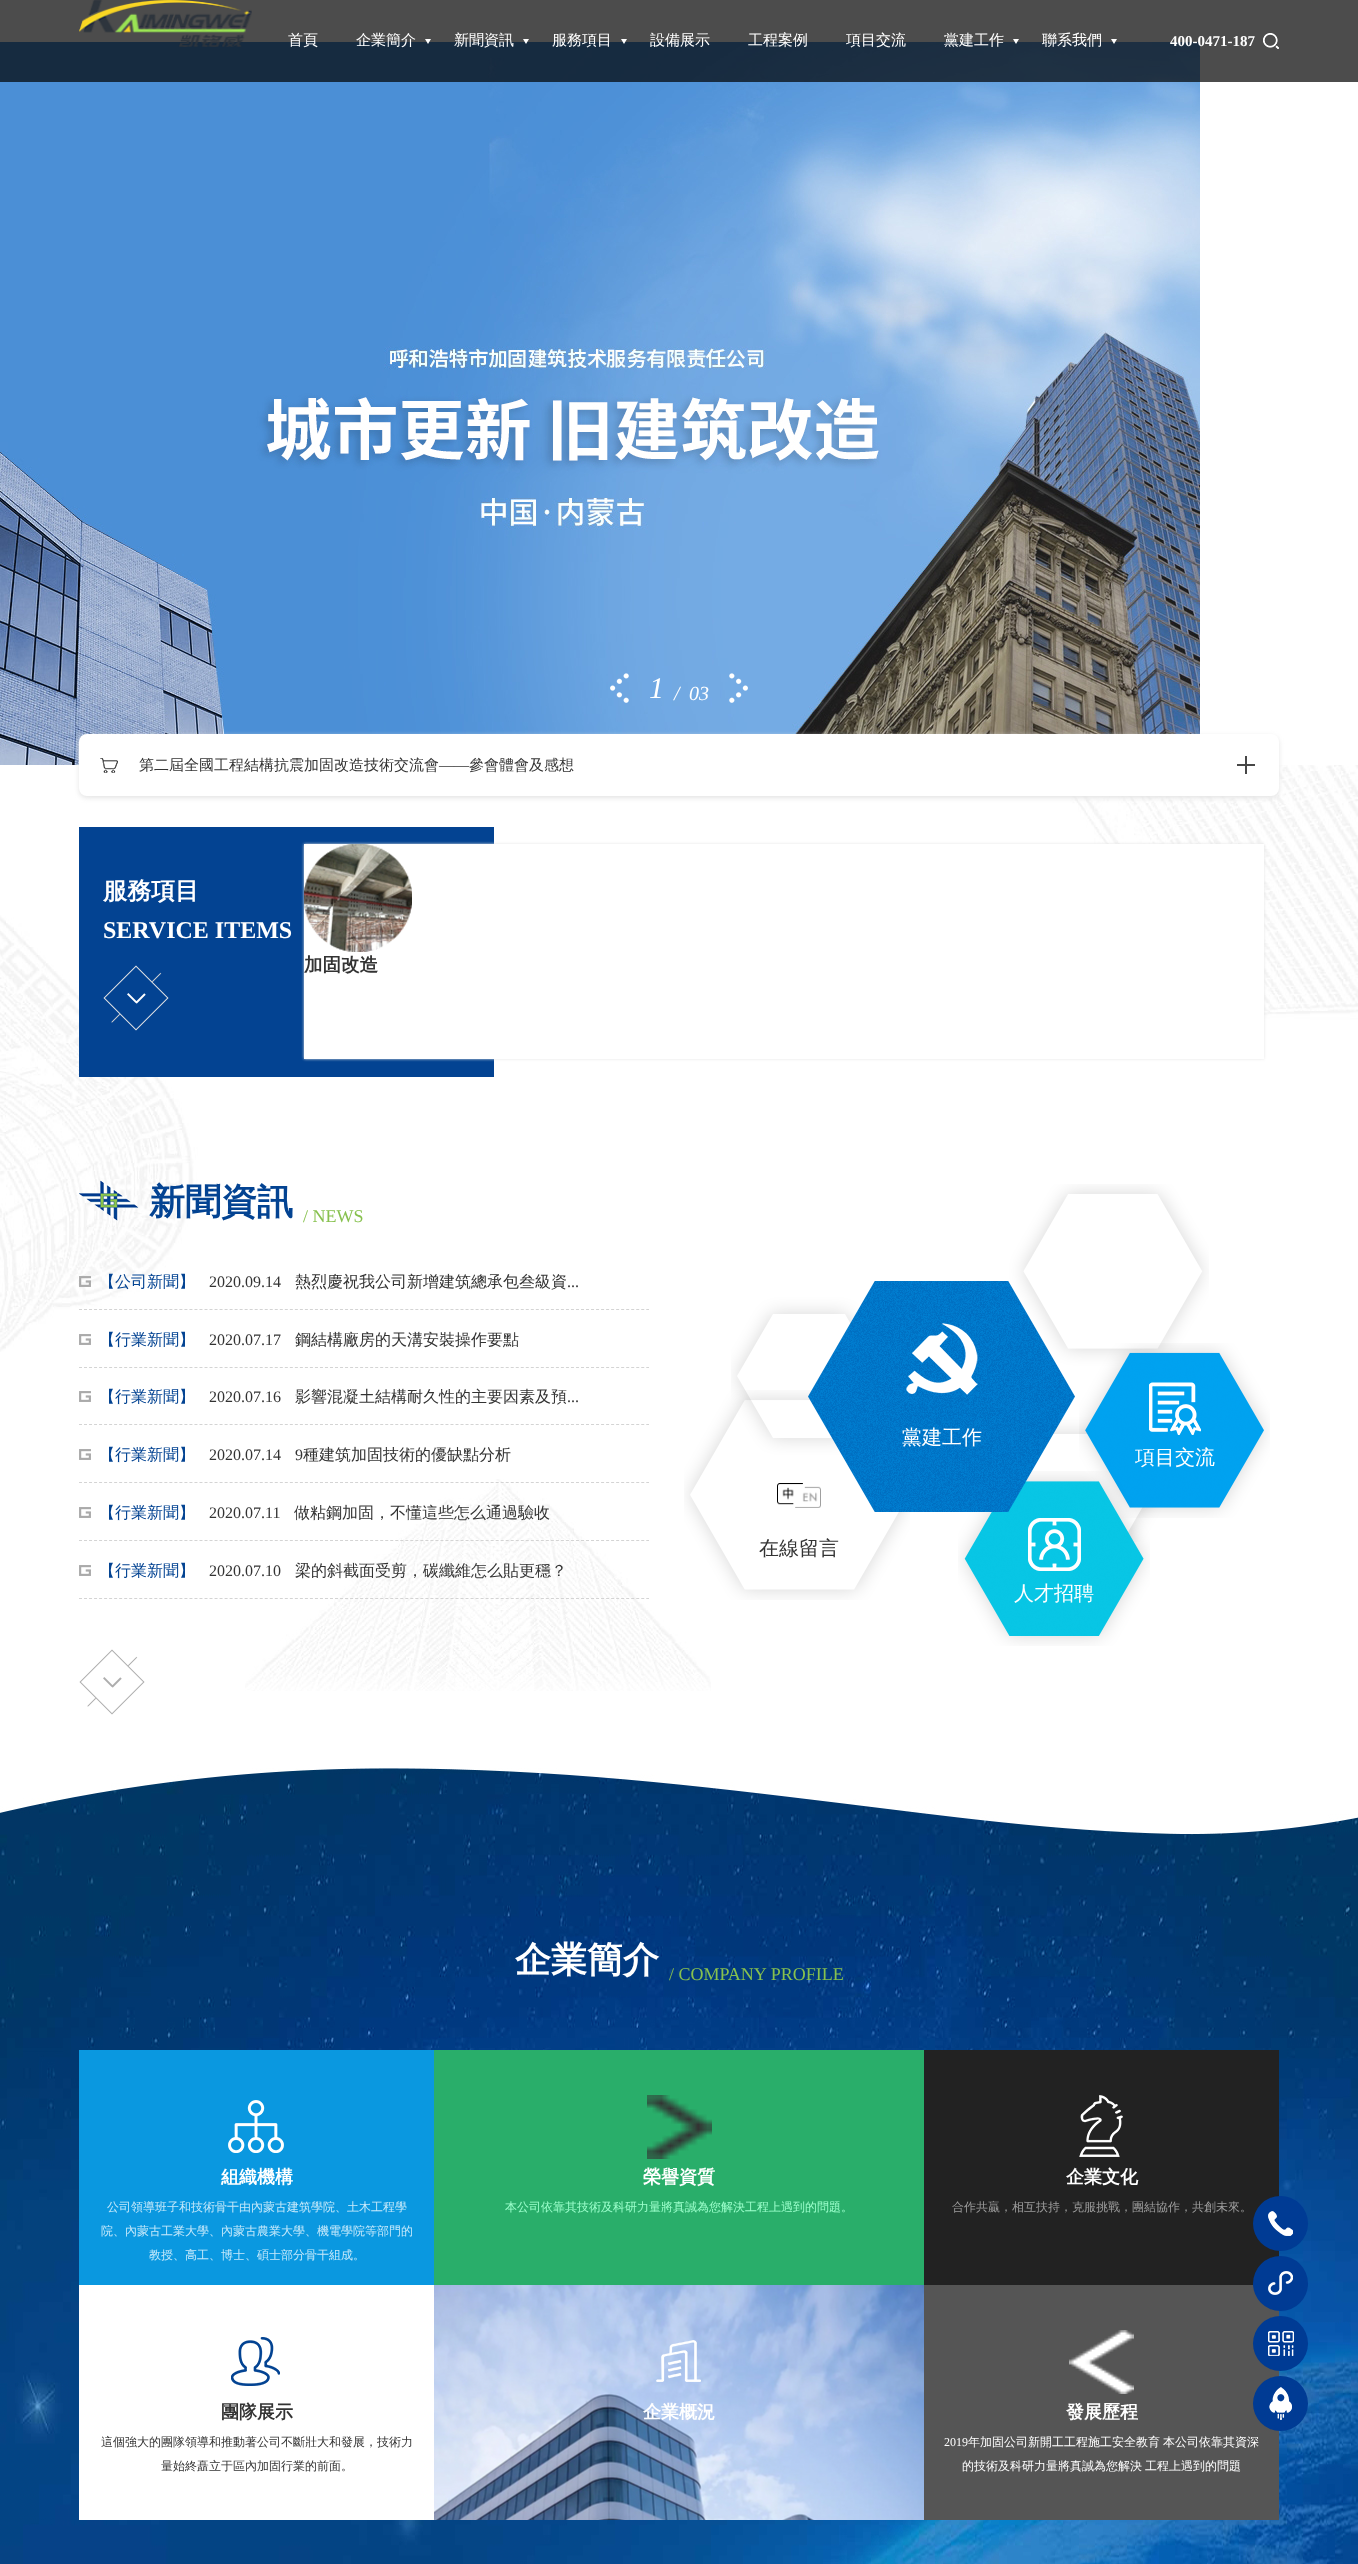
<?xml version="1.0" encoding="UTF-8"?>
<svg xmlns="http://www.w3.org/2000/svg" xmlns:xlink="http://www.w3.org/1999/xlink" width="1358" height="2564">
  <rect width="100%" height="100%" fill="#ffffff" />
  <image x="0" y="42" width="1200" height="723" xlink:href="image7.png" />
  <rect width="1358" height="82" fill="#000000" fill-opacity="0.7" />
  <image x="79" y="0" width="173" height="47" xlink:href="image1.png" />
  <image x="425" y="39" width="6" height="5" xlink:href="image2.png" />
  <image x="523" y="39" width="6" height="5" xlink:href="image2.png" />
  <image x="621" y="39" width="6" height="5" xlink:href="image3.png" />
  <image x="1013" y="39" width="6" height="5" xlink:href="image4.png" />
  <image x="1111" y="39" width="6" height="5" xlink:href="image5.png" />
  <image x="1263" y="33" width="16" height="16" xlink:href="image6.png" />
  <image x="610" y="673" width="19" height="30" xlink:href="image8.png" />
  <image x="729" y="673" width="19" height="30" xlink:href="image9.png" />
  <image x="0" y="765" width="1358" height="587" xlink:href="image10.png" />
  <rect x="79" y="736" width="1200" height="62" rx="8" fill="#e4e4e4" filter="blur(2.5px)" />
  <rect x="79" y="734" width="1200" height="62" rx="8" fill="#ffffff" />
  <image x="100" y="758" width="18" height="15" xlink:href="image11.png" />
  <image x="1237" y="756" width="18" height="18" xlink:href="image12.png" />
  <rect x="79" y="827" width="415" height="250" fill="#034392" />
  <image x="103" y="965" width="66" height="66" xlink:href="image13.png" />
  <rect x="304" y="844" width="960" height="215" fill="#e4e4e4" filter="blur(1.5px)" />
  <rect x="304" y="844" width="960" height="215" fill="#ffffff" />
  <image x="304" y="844" width="108" height="108" xlink:href="image14.png" />
  <image x="245" y="1479" width="466" height="212" xlink:href="image15.png" />
  <image x="79" y="1180" width="60" height="41" xlink:href="image16.png" />
  <path d="M 79 1309.5 h 570" fill="none" stroke="#d4d4d4" stroke-dasharray="3 2.02" />
  <image x="79" y="1276" width="12" height="11" xlink:href="image17.png" />
  <path d="M 79 1367.5 h 570" fill="none" stroke="#d4d4d4" stroke-dasharray="3 2.02" />
  <image x="79" y="1334" width="12" height="11" xlink:href="image18.png" />
  <path d="M 79 1424.5 h 570" fill="none" stroke="#d4d4d4" stroke-dasharray="3 2.02" />
  <image x="79" y="1391" width="12" height="11" xlink:href="image18.png" />
  <path d="M 79 1482.5 h 570" fill="none" stroke="#d4d4d4" stroke-dasharray="3 2.02" />
  <image x="79" y="1449" width="12" height="11" xlink:href="image18.png" />
  <path d="M 79 1540.5 h 570" fill="none" stroke="#d4d4d4" stroke-dasharray="3 2.02" />
  <image x="79" y="1507" width="12" height="11" xlink:href="image18.png" />
  <path d="M 79 1598.5 h 570" fill="none" stroke="#d4d4d4" stroke-dasharray="3 2.02" />
  <image x="79" y="1565" width="12" height="11" xlink:href="image18.png" />
  <image x="79" y="1649" width="66" height="66" xlink:href="image19.png" />
  <image x="731" y="1184" width="478" height="358" xlink:href="image20.png" />
  <image x="684" y="1390" width="226" height="210" xlink:href="image25.png" />
  <image x="777" y="1483" width="44" height="25" xlink:href="image26.png" />
  <image x="1079" y="1343" width="191" height="175" xlink:href="image23.png" />
  <image x="958" y="1471" width="192" height="175" xlink:href="image27.png" />
  <image x="808" y="1281" width="267" height="231" xlink:href="image21.png" />
  <image x="906" y="1323" width="72" height="72" xlink:href="image22.png" />
  <image x="1149" y="1382" width="52" height="53" xlink:href="image24.png" />
  <image x="1028" y="1518" width="53" height="53" xlink:href="image28.png" />
  <image x="0" y="1768" width="1358" height="796" xlink:href="image29.png" />
  <rect x="79" y="2050" width="355" height="235" fill="#0a98e0" />
  <image x="228" y="2100" width="56" height="53" xlink:href="image30.png" />
  <rect x="434" y="2050" width="490" height="235" fill="#29ae6a" />
  <image x="647" y="2095" width="65" height="64" xlink:href="image31.png" />
  <rect x="924" y="2050" width="355" height="235" fill="#222222" />
  <image x="1079" y="2095" width="44" height="62" xlink:href="image32.png" />
  <rect x="79" y="2285" width="355" height="235" fill="#ffffff" />
  <image x="231" y="2337" width="49" height="49" xlink:href="image33.png" />
  <image x="434" y="2285" width="490" height="235" xlink:href="image34.png" />
  <image x="656" y="2340" width="45" height="42" xlink:href="image35.png" />
  <rect x="924" y="2285" width="355" height="235" fill="#555555" />
  <image x="1069" y="2330" width="65" height="64" xlink:href="image36.png" />
  <circle cx="1280.5" cy="2223.5" r="27.5" fill="#003b94" />
  <image x="1268" y="2211" width="25" height="25" xlink:href="image37.png" />
  <circle cx="1280.5" cy="2283.5" r="27.5" fill="#003b94" />
  <image x="1268" y="2271" width="25" height="24" xlink:href="image38.png" />
  <circle cx="1280.5" cy="2343.5" r="27.5" fill="#003b94" />
  <image x="1268" y="2331" width="26" height="25" xlink:href="image39.png" />
  <circle cx="1280.5" cy="2403.5" r="27.5" fill="#003b94" />
  <image x="1269" y="2387" width="23" height="33" xlink:href="image40.png" />
  <text x="288" y="45" style="font-family: WenQuanYi Zen Hei; font-size: 15px; font-weight: 500; fill: #ffffff">首頁</text>
  <text x="356" y="45" style="font-family: WenQuanYi Zen Hei; font-size: 15px; font-weight: 500; fill: #ffffff">企業簡介</text>
  <text x="454" y="45" style="font-family: WenQuanYi Zen Hei; font-size: 15px; font-weight: 500; fill: #ffffff">新聞資訊</text>
  <text x="552" y="45" style="font-family: WenQuanYi Zen Hei; font-size: 15px; font-weight: 500; fill: #ffffff">服務項目</text>
  <text x="650" y="45" style="font-family: WenQuanYi Zen Hei; font-size: 15px; font-weight: 500; fill: #ffffff">設備展示</text>
  <text x="748" y="45" style="font-family: WenQuanYi Zen Hei; font-size: 15px; font-weight: 500; fill: #ffffff">工程案例</text>
  <text x="846" y="45" style="font-family: WenQuanYi Zen Hei; font-size: 15px; font-weight: 500; fill: #ffffff">項目交流</text>
  <text x="944" y="45" style="font-family: WenQuanYi Zen Hei; font-size: 15px; font-weight: 500; fill: #ffffff">黨建工作</text>
  <text x="1042" y="45" style="font-family: WenQuanYi Zen Hei; font-size: 15px; font-weight: 500; fill: #ffffff">聯系我們</text>
  <text x="1170" y="46" style="font-family: Liberation Serif; font-size: 15px; font-weight: bold; fill: #ffffff">400-0471-187</text>
  <text x="649" y="698" style="font-family: Liberation Serif; font-size: 30px; font-style: italic; fill: #ffffff">1</text>
  <text x="674" y="700" style="font-family: Liberation Serif; font-size: 20px; font-style: italic; fill: #ffffff">/</text>
  <text x="689" y="700" style="font-family: Liberation Serif; font-size: 20px; font-style: italic; fill: #ffffff">03</text>
  <text x="139" y="770" style="font-family: WenQuanYi Zen Hei; font-size: 15px; font-weight: 500; fill: #333333">第二屆全國工程結構抗震加固改造技術交流會</text>
  <text x="439" y="770" style="font-family: Liberation Serif; font-size: 15px; fill: #333333">——</text>
  <text x="469" y="770" style="font-family: WenQuanYi Zen Hei; font-size: 15px; font-weight: 500; fill: #333333">參會體會及感想</text>
  <text x="103" y="899" style="font-family: WenQuanYi Zen Hei; font-size: 24px; font-weight: bold; fill: #ffffff">服務項目</text>
  <text x="103" y="938" style="font-family: Liberation Serif; font-size: 24px; font-weight: bold; fill: #ffffff">SERVICE ITEMS</text>
  <text x="304" y="971" style="font-family: WenQuanYi Zen Hei; font-size: 18.5px; font-weight: bold; fill: #333333">加固改造</text>
  <text x="149" y="1214" style="font-family: WenQuanYi Zen Hei; font-size: 36px; font-weight: bold; fill: #034392">新聞資訊</text>
  <text x="303" y="1222" style="font-family: Liberation Serif; font-size: 18px; fill: #87c14e">/ NEWS</text>
  <text x="99" y="1287" style="font-family: WenQuanYi Zen Hei; font-size: 16px; font-weight: 500; fill: #034392">【公司新聞】</text>
  <text x="209" y="1287" style="font-family: Liberation Serif; font-size: 16px; fill: #333333">2020.09.14</text>
  <text x="295" y="1287" style="font-family: WenQuanYi Zen Hei; font-size: 16px; font-weight: 500; fill: #333333">熱烈慶祝我公司新增建筑總承包叁級資</text>
  <text x="567" y="1287" style="font-family: Liberation Serif; font-size: 16px; fill: #333333">...</text>
  <text x="99" y="1345" style="font-family: WenQuanYi Zen Hei; font-size: 16px; font-weight: 500; fill: #034392">【行業新聞】</text>
  <text x="209" y="1345" style="font-family: Liberation Serif; font-size: 16px; fill: #333333">2020.07.17</text>
  <text x="295" y="1345" style="font-family: WenQuanYi Zen Hei; font-size: 16px; font-weight: 500; fill: #333333">鋼結構廠房的天溝安裝操作要點</text>
  <text x="99" y="1402" style="font-family: WenQuanYi Zen Hei; font-size: 16px; font-weight: 500; fill: #034392">【行業新聞】</text>
  <text x="209" y="1402" style="font-family: Liberation Serif; font-size: 16px; fill: #333333">2020.07.16</text>
  <text x="295" y="1402" style="font-family: WenQuanYi Zen Hei; font-size: 16px; font-weight: 500; fill: #333333">影響混凝土結構耐久性的主要因素及預</text>
  <text x="567" y="1402" style="font-family: Liberation Serif; font-size: 16px; fill: #333333">...</text>
  <text x="99" y="1460" style="font-family: WenQuanYi Zen Hei; font-size: 16px; font-weight: 500; fill: #034392">【行業新聞】</text>
  <text x="209" y="1460" style="font-family: Liberation Serif; font-size: 16px; fill: #333333">2020.07.14</text>
  <text x="295" y="1460" style="font-family: Liberation Serif; font-size: 16px; fill: #333333">9</text>
  <text x="303" y="1460" style="font-family: WenQuanYi Zen Hei; font-size: 16px; font-weight: 500; fill: #333333">種建筑加固技術的優缺點分析</text>
  <text x="99" y="1518" style="font-family: WenQuanYi Zen Hei; font-size: 16px; font-weight: 500; fill: #034392">【行業新聞】</text>
  <text x="209" y="1518" style="font-family: Liberation Serif; font-size: 16px; fill: #333333">2020.07.11</text>
  <text x="294" y="1518" style="font-family: WenQuanYi Zen Hei; font-size: 16px; font-weight: 500; fill: #333333">做粘鋼加固，不懂這些怎么通過驗收</text>
  <text x="99" y="1576" style="font-family: WenQuanYi Zen Hei; font-size: 16px; font-weight: 500; fill: #034392">【行業新聞】</text>
  <text x="209" y="1576" style="font-family: Liberation Serif; font-size: 16px; fill: #333333">2020.07.10</text>
  <text x="295" y="1576" style="font-family: WenQuanYi Zen Hei; font-size: 16px; font-weight: 500; fill: #333333">梁的斜截面受剪，碳纖維怎么貼更穩？</text>
  <text x="902" y="1444" style="font-family: WenQuanYi Zen Hei; font-size: 20px; font-weight: 500; fill: #ffffff">黨建工作</text>
  <text x="1135" y="1464" style="font-family: WenQuanYi Zen Hei; font-size: 20px; font-weight: 500; fill: #ffffff">項目交流</text>
  <text x="759" y="1555" style="font-family: WenQuanYi Zen Hei; font-size: 20px; font-weight: 500; fill: #333333">在線留言</text>
  <text x="1014" y="1600" style="font-family: WenQuanYi Zen Hei; font-size: 20px; font-weight: 500; fill: #ffffff">人才招聘</text>
  <text x="515" y="1972" style="font-family: WenQuanYi Zen Hei; font-size: 36px; font-weight: bold; fill: #ffffff">企業簡介</text>
  <text x="669" y="1980" style="font-family: Liberation Serif; font-size: 18px; fill: #87c14e">/ COMPANY PROFILE</text>
  <text x="221" y="2183" style="font-family: WenQuanYi Zen Hei; font-size: 18px; font-weight: bold; fill: #ffffff">組織機構</text>
  <text x="107" y="2211" style="font-family: WenQuanYi Zen Hei; font-size: 12px; font-weight: 500; fill: #c6e9fb">公司領導班子和技術骨干由內蒙古建筑學院、土木工程學</text>
  <text x="101" y="2235" style="font-family: WenQuanYi Zen Hei; font-size: 12px; font-weight: 500; fill: #c6e9fb">院、內蒙古工業大學、內蒙古農業大學、機電學院等部門的</text>
  <text x="149" y="2259" style="font-family: WenQuanYi Zen Hei; font-size: 12px; font-weight: 500; fill: #c6e9fb">教授、高工、博士、碩士部分骨干組成。</text>
  <text x="643" y="2183" style="font-family: WenQuanYi Zen Hei; font-size: 18px; font-weight: bold; fill: #ffffff">榮譽資質</text>
  <text x="505" y="2211" style="font-family: WenQuanYi Zen Hei; font-size: 12px; font-weight: 500; fill: #9cffcc">本公司依靠其技術及科研力量將真誠為您解決工程上遇到的問題。</text>
  <text x="1066" y="2183" style="font-family: WenQuanYi Zen Hei; font-size: 18px; font-weight: bold; fill: #ffffff">企業文化</text>
  <text x="952" y="2211" style="font-family: WenQuanYi Zen Hei; font-size: 12px; font-weight: 500; fill: #9d9d9d">合作共贏，相互扶持，克服挑戰，團結協作，共創未來。</text>
  <text x="221" y="2418" style="font-family: WenQuanYi Zen Hei; font-size: 18px; font-weight: bold; fill: #333333">團隊展示</text>
  <text x="101" y="2446" style="font-family: WenQuanYi Zen Hei; font-size: 12px; font-weight: 500; fill: #333333">這個強大的團隊領導和推動著公司不斷壯大和發展，技術力</text>
  <text x="161" y="2470" style="font-family: WenQuanYi Zen Hei; font-size: 12px; font-weight: 500; fill: #333333">量始終矗立于區內加固行業的前面。</text>
  <text x="643" y="2418" style="font-family: WenQuanYi Zen Hei; font-size: 18px; font-weight: bold; fill: #ffffff">企業概況</text>
  <text x="1066" y="2418" style="font-family: WenQuanYi Zen Hei; font-size: 18px; font-weight: bold; fill: #ffffff">發展歷程</text>
  <text x="944" y="2446" style="font-family: Liberation Serif; font-size: 12px; fill: #ffffff">2019</text>
  <text x="968" y="2446" style="font-family: WenQuanYi Zen Hei; font-size: 12px; font-weight: 500; fill: #ffffff">年加固公司新開工工程施工安全教育</text>
  <text x="1163" y="2446" style="font-family: WenQuanYi Zen Hei; font-size: 12px; font-weight: 500; fill: #ffffff">本公司依靠其資深</text>
  <text x="962" y="2470" style="font-family: WenQuanYi Zen Hei; font-size: 12px; font-weight: 500; fill: #ffffff">的技術及科研力量將真誠為您解決</text>
  <text x="1145" y="2470" style="font-family: WenQuanYi Zen Hei; font-size: 12px; font-weight: 500; fill: #ffffff">工程上遇到的問題</text>
</svg>
